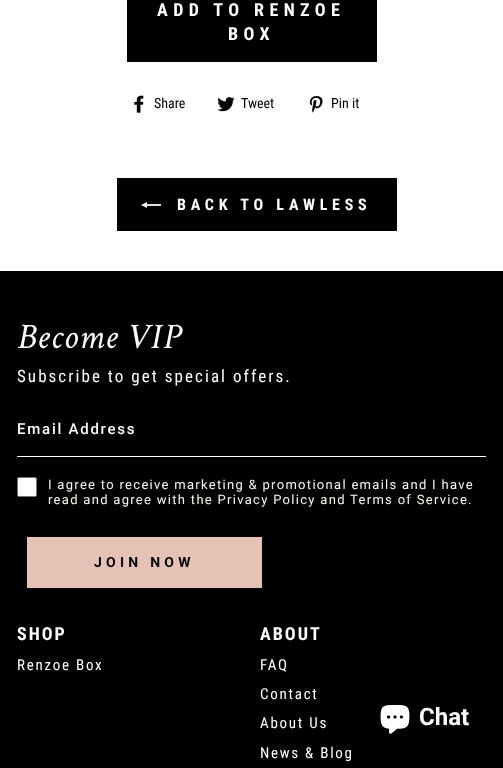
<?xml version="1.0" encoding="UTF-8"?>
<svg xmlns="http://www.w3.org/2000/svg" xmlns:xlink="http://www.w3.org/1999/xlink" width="503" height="768">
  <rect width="100%" height="100%" fill="#ffffff" />
  <rect x="127" width="250" height="62" fill="#000000" />
  <image x="134" y="95" width="10" height="18" xlink:href="image1.png" />
  <image x="217" y="97" width="18" height="15" xlink:href="image2.png" />
  <image x="309" y="96" width="14" height="17" xlink:href="image3.png" />
  <rect x="117" y="178" width="280" height="53" fill="#000000" />
  <image x="141" y="202" width="20" height="6" xlink:href="image4.png" />
  <rect y="271" width="503" height="497" fill="#000000" />
  <rect x="17" y="456" width="469" height="1" fill="#ffffff" />
  <rect x="17.5" y="477.5" width="19" height="19" rx="1.5" fill="#ffffff" stroke="#767676" />
  <rect x="27" y="537" width="235" height="51" fill="#e5c2b5" />
  <image x="380" y="705" width="30" height="29" xlink:href="image5.png" />
  <text x="157" y="16" style="font-family: Roboto Condensed; font-size: 18px; font-weight: bold; letter-spacing: 5.4px; fill: #ffffff">ADD TO RENZOE</text>
  <text x="228" y="40" style="font-family: Roboto Condensed; font-size: 18px; font-weight: bold; letter-spacing: 5.4px; fill: #ffffff">BOX</text>
  <text x="154" y="108" style="font-family: Roboto Condensed; font-size: 14px; fill: #000000">Share</text>
  <text x="241" y="108" style="font-family: Roboto Condensed; font-size: 14px; fill: #000000">Tweet</text>
  <text x="331" y="108" style="font-family: Roboto Condensed; font-size: 14px; fill: #000000">Pin it</text>
  <text x="177" y="210" style="font-family: Roboto Condensed; font-size: 16px; font-weight: bold; letter-spacing: 4.75px; fill: #ffffff">BACK TO LAWLESS</text>
  <text x="17" y="348" style="font-family: Crimson Text; font-size: 36px; font-style: italic; letter-spacing: 0.75px; fill: #ffffff">Become VIP</text>
  <text x="17" y="382" style="font-family: Roboto Condensed; font-size: 17px; letter-spacing: 2.05px; fill: #ffffff">Subscribe to get special offers.</text>
  <text x="17" y="434" style="font-family: Roboto; font-size: 15px; font-weight: 500; letter-spacing: 1.75px; fill: #ffffff">Email Address</text>
  <text x="48" y="489" style="font-family: Roboto; font-size: 13px; letter-spacing: 1.3px; fill: #fbf6f0">I agree to receive marketing &amp; promotional emails and I have</text>
  <text x="48" y="504" style="font-family: Roboto; font-size: 13px; letter-spacing: 1.3px; fill: #fbf6f0">read and agree with the Privacy Policy and Terms of Service.</text>
  <text x="94" y="567" style="font-family: Roboto; font-size: 14px; font-weight: bold; letter-spacing: 4.25px; fill: #000000">JOIN NOW</text>
  <text x="17" y="640" style="font-family: Roboto Condensed; font-size: 18px; font-weight: bold; letter-spacing: 2px; fill: #ffffff">SHOP</text>
  <text x="17" y="670" style="font-family: Roboto Condensed; font-size: 15px; letter-spacing: 1.75px; fill: #ffffff">Renzoe Box</text>
  <text x="260" y="640" style="font-family: Roboto Condensed; font-size: 18px; font-weight: bold; letter-spacing: 2px; fill: #ffffff">ABOUT</text>
  <text x="260" y="670" style="font-family: Roboto Condensed; font-size: 15px; letter-spacing: 1.75px; fill: #ffffff">FAQ</text>
  <text x="260" y="699" style="font-family: Roboto Condensed; font-size: 15px; letter-spacing: 1.75px; fill: #ffffff">Contact</text>
  <text x="260" y="728" style="font-family: Roboto Condensed; font-size: 15px; letter-spacing: 1.75px; fill: #ffffff">About Us</text>
  <text x="260" y="758" style="font-family: Roboto Condensed; font-size: 15px; letter-spacing: 1.75px; fill: #ffffff">News &amp; Blog</text>
  <text x="419" y="725" style="font-family: Roboto; font-size: 24px; font-weight: bold; fill: #ffffff">Chat</text>
</svg>
